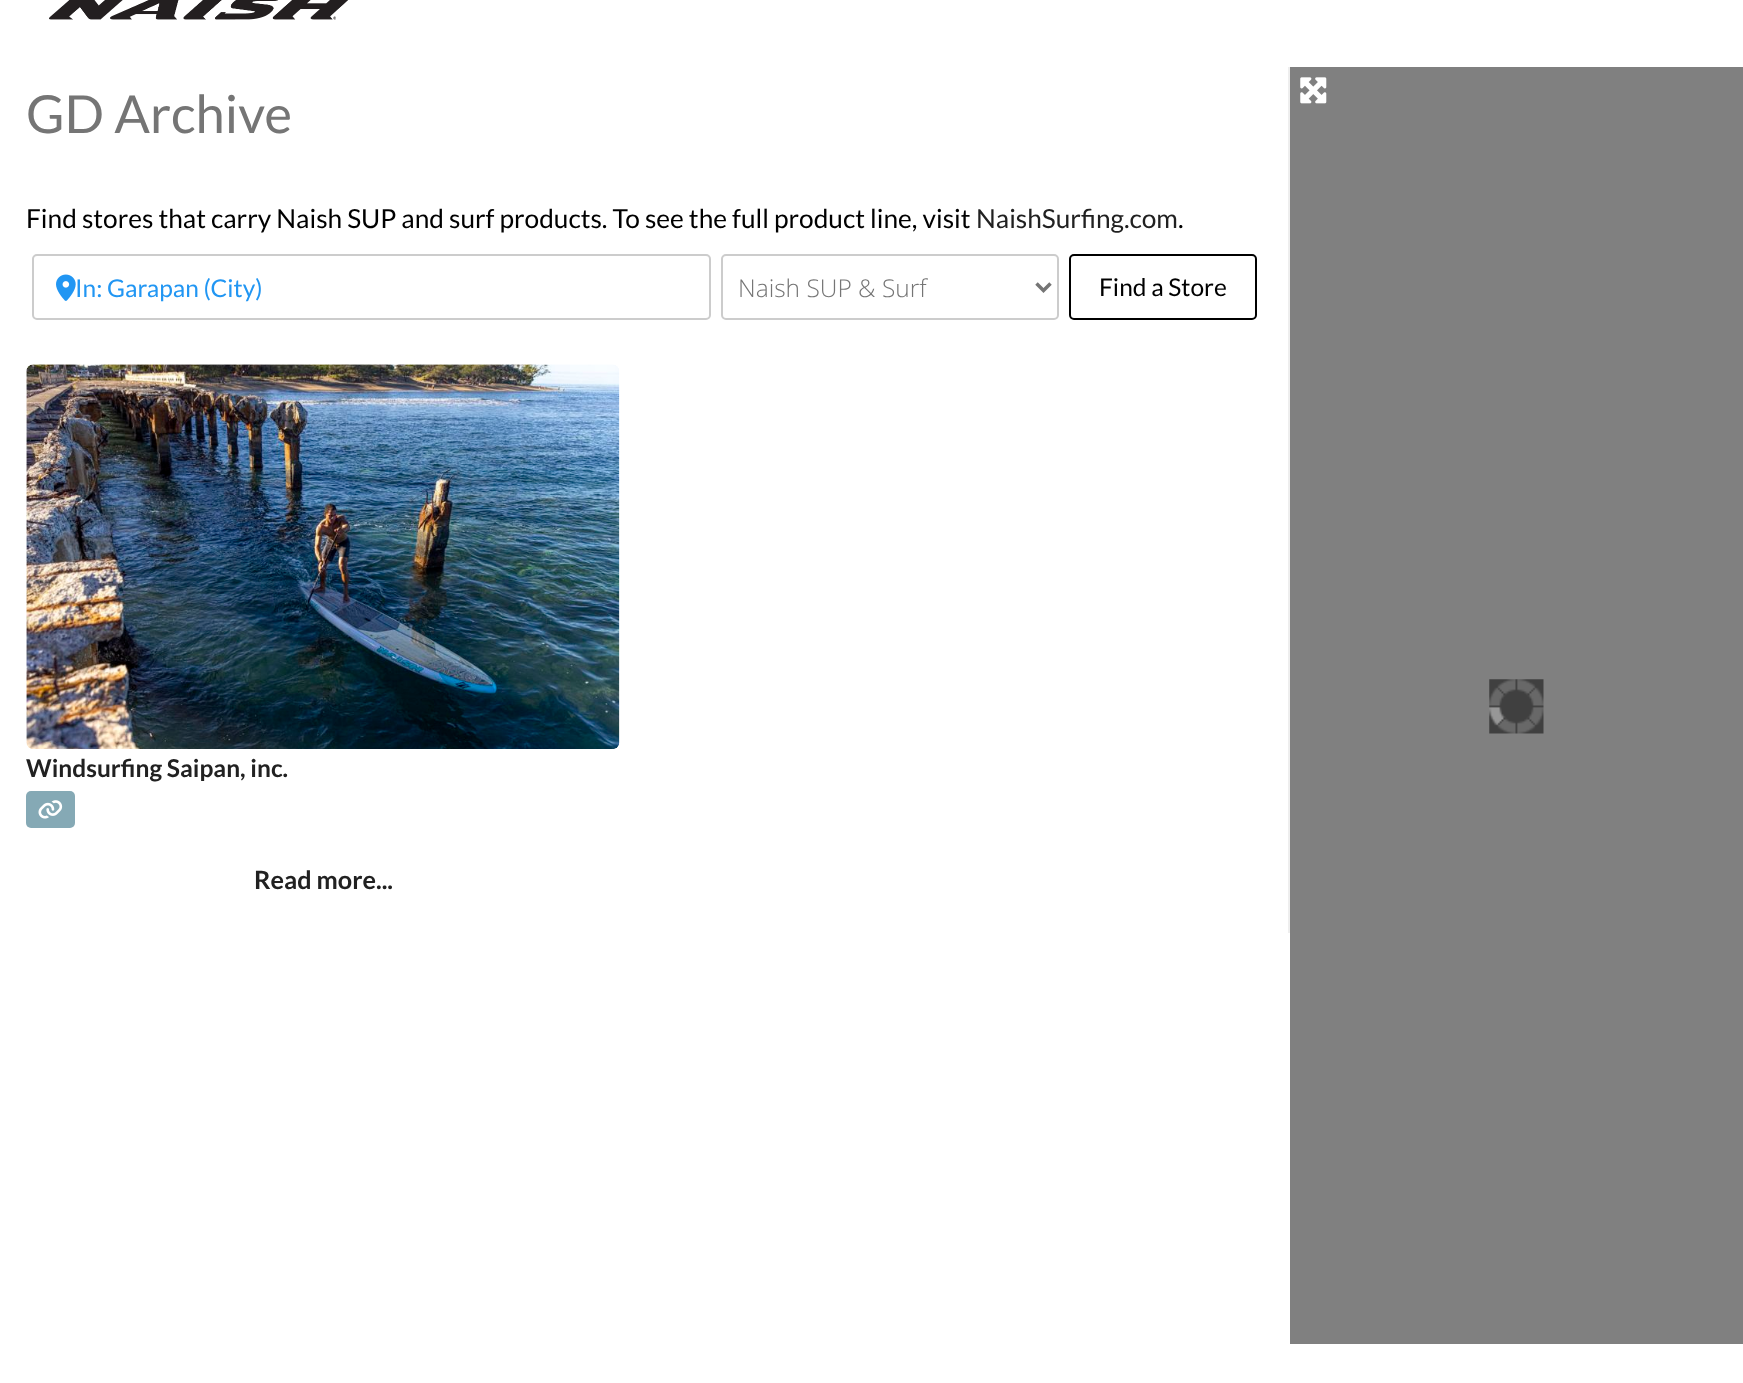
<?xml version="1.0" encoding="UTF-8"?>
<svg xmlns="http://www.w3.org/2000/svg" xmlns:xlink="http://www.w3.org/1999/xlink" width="1743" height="1383">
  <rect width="100%" height="100%" fill="#ffffff" />
  <image x="49" y="0" width="299" height="20" xlink:href="image1.png" />
  <rect x="1288" y="67" width="2" height="866" fill="#eeeeee" />
  <rect x="33" y="255" width="677" height="64" rx="4" fill="none" stroke="#cccccc" stroke-width="2" />
  <image x="56" y="274" width="20" height="27" xlink:href="image2.png" />
  <rect x="722" y="255" width="336" height="64" rx="4" fill="none" stroke="#cccccc" stroke-width="2" />
  <path d="M 1036.5 283.5 l 7 7 l 7 -7" fill="none" stroke="#757575" stroke-width="3.5" />
  <rect x="1070" y="255" width="186" height="64" rx="4" fill="none" stroke="#000000" stroke-width="2" />
  <image x="26" y="364" width="594" height="385" xlink:href="image3.png" />
  <rect x="26" y="791" width="49" height="37" rx="5" fill="#85a9b5" />
  <image x="38" y="800" width="25" height="19" xlink:href="image4.png" />
  <rect x="1290" y="67" width="453" height="1277" fill="#808080" />
  <image x="1489" y="679" width="55" height="55" xlink:href="image5.png" />
  <image x="1300" y="77" width="27" height="27" xlink:href="image6.png" />
  <text x="26" y="133" style="font-family: Lato; font-size: 52.5px; fill: #757575">GD Archive</text>
  <text x="26" y="228" style="font-family: Lato; font-size: 26.25px; fill: #000000">Find stores that carry Naish SUP and surf products. To see the full product line, visit</text>
  <text x="976" y="228" style="font-family: Lato; font-size: 26.25px; fill: #212121">NaishSurfing.com</text>
  <text x="1178" y="228" style="font-family: Lato; font-size: 26.25px; fill: #000000">.</text>
  <text x="75" y="297" style="font-family: Lato; font-size: 24.5px; fill: #2196f3">In: Garapan (City)</text>
  <text x="738" y="297" style="font-family: Open Sans; font-size: 24.5px; font-weight: 300; fill: #757575">Naish SUP &amp; Surf</text>
  <text x="1099" y="296" style="font-family: Lato; font-size: 24.5px; fill: #000000">Find a Store</text>
  <text x="26" y="777" style="font-family: Lato; font-size: 24.5px; font-weight: bold; fill: #212121">Windsurfing Saipan, inc.</text>
  <text x="254" y="889" style="font-family: Lato; font-size: 25.25px; font-weight: bold; fill: #212121">Read more...</text>
</svg>
